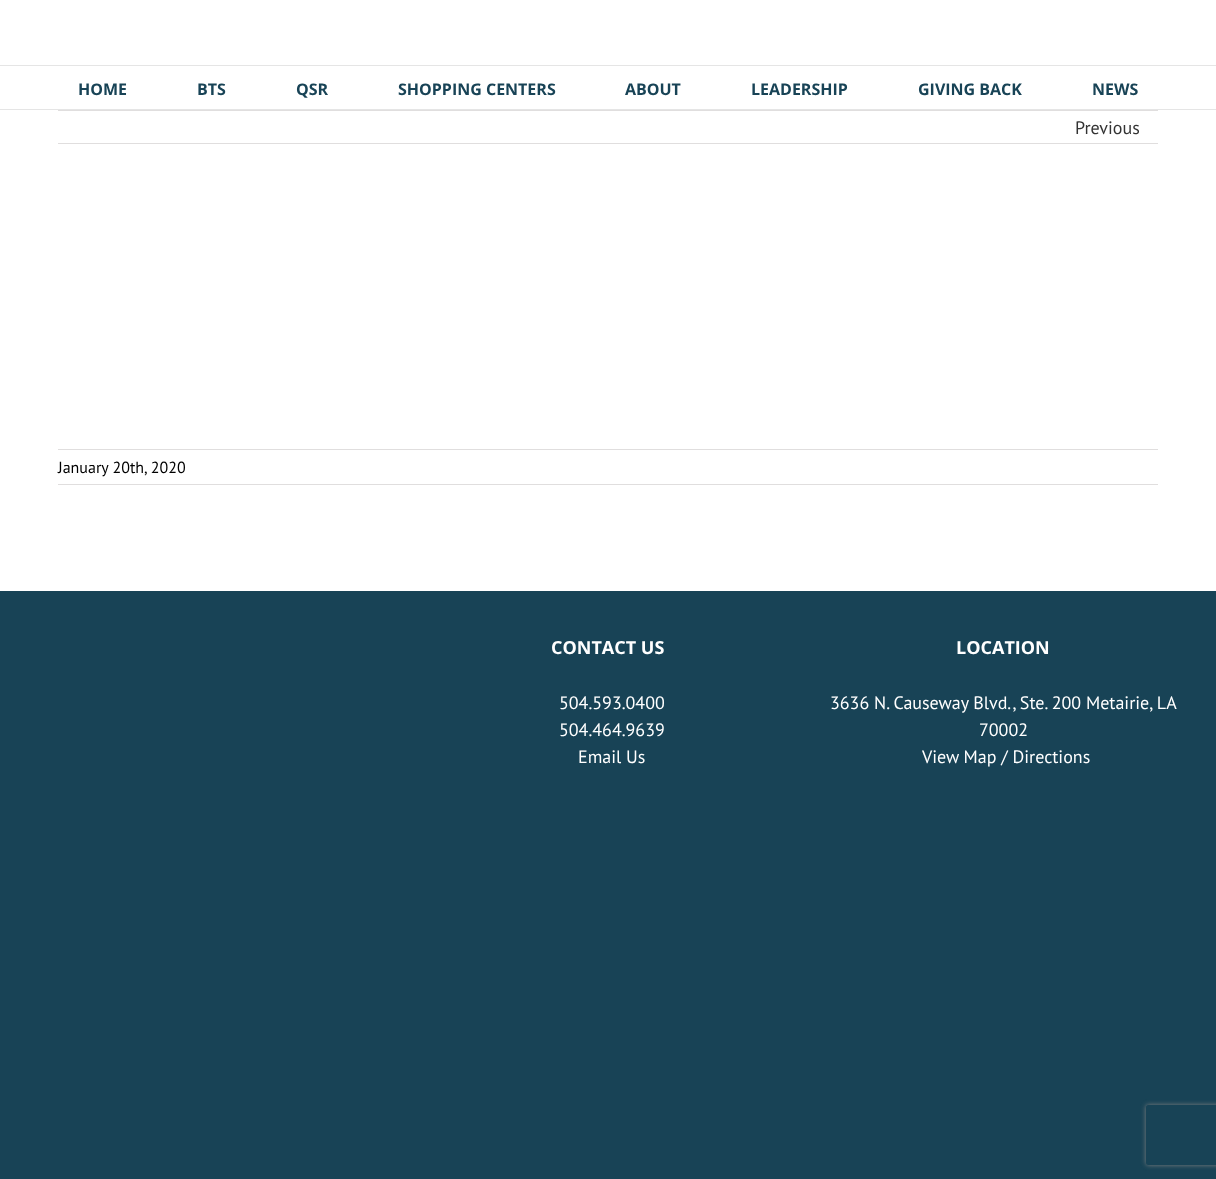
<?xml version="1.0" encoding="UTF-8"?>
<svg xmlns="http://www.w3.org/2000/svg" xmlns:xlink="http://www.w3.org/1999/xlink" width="1216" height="1179">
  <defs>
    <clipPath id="clip1"><path d="M 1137 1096 h 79 v 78 h -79 z m 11 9 h 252 c 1 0 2 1 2 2 v 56 c 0 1 -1 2 -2 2 h -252 c -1 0 -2 -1 -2 -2 v -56 c 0 -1 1 -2 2 -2 z" clip-rule="evenodd" /></clipPath>
  </defs>
  <rect width="100%" height="100%" fill="#ffffff" />
  <rect y="65" width="1216" height="1" fill="#e5e5e5" />
  <rect y="109" width="1216" height="1" fill="#e5e5e5" />
  <rect x="58" y="110" width="1100" height="1" fill="#e0dede" />
  <rect x="58" y="143" width="1100" height="1" fill="#e0dede" />
  <rect x="58" y="449" width="1100" height="1" fill="#e0dede" />
  <rect x="58" y="484" width="1100" height="1" fill="#e0dede" />
  <rect y="591" width="1216" height="588" fill="#184356" />
  <g clip-path="url(#clip1)">
    <rect x="1146" y="1105" width="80" height="60" rx="2" fill="#808080" filter="blur(2.5px)" />
  </g>
  <text x="78" y="95" style="font-family: Open Sans; font-size: 16px; font-weight: bold; fill: #184356">HOME</text>
  <text x="197" y="95" style="font-family: Open Sans; font-size: 16px; font-weight: bold; fill: #184356">BTS</text>
  <text x="296" y="95" style="font-family: Open Sans; font-size: 16px; font-weight: bold; fill: #184356">QSR</text>
  <text x="398" y="95" style="font-family: Open Sans; font-size: 16px; font-weight: bold; fill: #184356">SHOPPING CENTERS</text>
  <text x="625" y="95" style="font-family: Open Sans; font-size: 16px; font-weight: bold; fill: #184356">ABOUT</text>
  <text x="751" y="95" style="font-family: Open Sans; font-size: 16px; font-weight: bold; fill: #184356">LEADERSHIP</text>
  <text x="918" y="95" style="font-family: Open Sans; font-size: 16px; font-weight: bold; fill: #184356">GIVING BACK</text>
  <text x="1092" y="95" style="font-family: Open Sans; font-size: 16px; font-weight: bold; fill: #184356">NEWS</text>
  <text x="1075" y="134" style="font-family: PT Sans; font-size: 18px; fill: #333333">Previous</text>
  <text x="58" y="473" style="font-family: PT Sans; font-size: 16px; fill: #000000">January 20th, 2020</text>
  <text x="551" y="654" style="font-family: Open Sans; font-size: 18px; font-weight: bold; fill: #ffffff">CONTACT US</text>
  <text x="559" y="709" style="font-family: PT Sans; font-size: 18px; fill: #ffffff">504.593.0400</text>
  <text x="559" y="736" style="font-family: PT Sans; font-size: 18px; fill: #ffffff">504.464.9639</text>
  <text x="578" y="763" style="font-family: PT Sans; font-size: 18px; fill: #ffffff">Email Us</text>
  <text x="956" y="654" style="font-family: Open Sans; font-size: 18px; font-weight: bold; fill: #ffffff">LOCATION</text>
  <text x="830" y="709" style="font-family: PT Sans; font-size: 18px; fill: #ffffff">3636 N. Causeway Blvd., Ste. 200 Metairie, LA</text>
  <text x="979" y="736" style="font-family: PT Sans; font-size: 18px; fill: #ffffff">70002</text>
  <text x="922" y="763" style="font-family: PT Sans; font-size: 18px; fill: #ffffff">View Map / Directions</text>
</svg>
